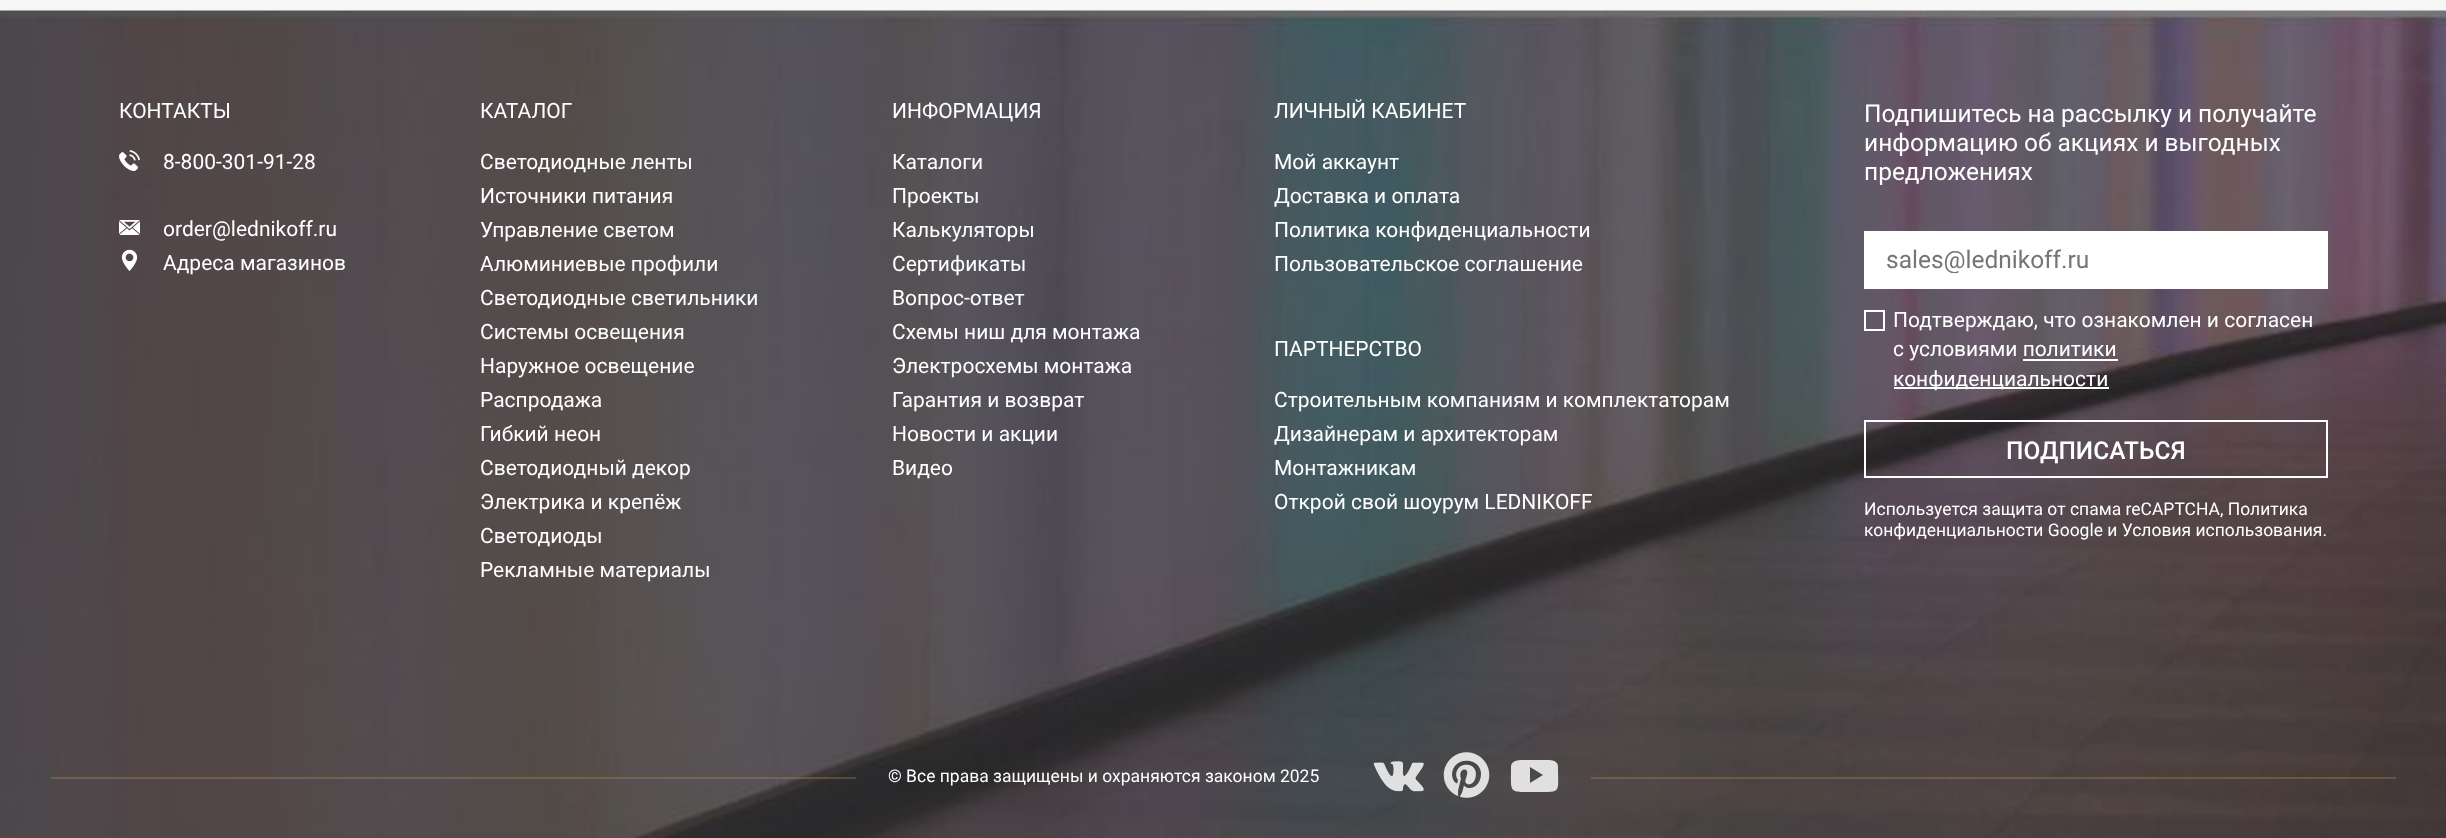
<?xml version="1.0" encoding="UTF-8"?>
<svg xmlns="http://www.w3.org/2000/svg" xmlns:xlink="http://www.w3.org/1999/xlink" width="2446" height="838">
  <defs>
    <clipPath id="clip1"><rect x="1887" y="245" width="418" height="28" /></clipPath>
  </defs>
  <rect width="100%" height="100%" fill="#f6f6f6" />
  <image x="0" y="10" width="2446" height="828" xlink:href="image1.png" />
  <image x="119" y="150" width="21" height="22" xlink:href="image2.png" />
  <image x="119" y="220" width="21" height="15" xlink:href="image3.png" />
  <image x="121" y="249" width="17" height="22" xlink:href="image4.png" />
  <rect x="1864" y="231" width="464" height="58" fill="#ffffff" />
  <rect x="1865" y="311" width="19" height="19" fill="none" stroke="#ffffff" stroke-width="2" />
  <rect x="2023" y="359" width="95" height="2" fill="#ffffff" />
  <rect x="1894" y="387" width="215" height="2" fill="#ffffff" />
  <rect x="1865" y="421" width="462" height="56" fill="none" stroke="#ffffff" stroke-width="2" />
  <rect x="51" y="777" width="805" height="2" fill="#bf9450" fill-opacity="0.31" />
  <image x="1373" y="761" width="51" height="31" xlink:href="image5.png" />
  <image x="1443" y="752" width="47" height="46" xlink:href="image6.png" />
  <path d="M 1558 767 c 0 -7 -7 -7 -12 -7 h -22 c -5 0 -13 0 -13 7 c 0 27 -3 25 24 25 c 27 0 23 2 23 -25 z m -28 16 v -16 l 13 8 z" fill="#e0e0e0" />
  <rect x="1591" y="777" width="805" height="2" fill="#bf9450" fill-opacity="0.31" />
  <text x="119" y="118" style="font-family: Roboto; font-size: 21px; fill: #ffffff">КОНТАКТЫ</text>
  <text x="163" y="169" style="font-family: Roboto; font-size: 21px; fill: #ffffff">8-800-301-91-28</text>
  <text x="163" y="236" style="font-family: Roboto; font-size: 21px; fill: #ffffff">order@lednikoff.ru</text>
  <text x="163" y="270" style="font-family: Roboto; font-size: 21px; fill: #ffffff">Адреса магазинов</text>
  <text x="480" y="118" style="font-family: Roboto; font-size: 21px; fill: #ffffff">КАТАЛОГ</text>
  <text x="480" y="169" style="font-family: Roboto; font-size: 21px; fill: #ffffff">Светодиодные ленты</text>
  <text x="480" y="203" style="font-family: Roboto; font-size: 21px; fill: #ffffff">Источники питания</text>
  <text x="480" y="237" style="font-family: Roboto; font-size: 21px; fill: #ffffff">Управление светом</text>
  <text x="480" y="271" style="font-family: Roboto; font-size: 21px; fill: #ffffff">Алюминиевые профили</text>
  <text x="480" y="305" style="font-family: Roboto; font-size: 21px; fill: #ffffff">Светодиодные светильники</text>
  <text x="480" y="339" style="font-family: Roboto; font-size: 21px; fill: #ffffff">Системы освещения</text>
  <text x="480" y="373" style="font-family: Roboto; font-size: 21px; fill: #ffffff">Наружное освещение</text>
  <text x="480" y="407" style="font-family: Roboto; font-size: 21px; fill: #ffffff">Распродажа</text>
  <text x="480" y="441" style="font-family: Roboto; font-size: 21px; fill: #ffffff">Гибкий неон</text>
  <text x="480" y="475" style="font-family: Roboto; font-size: 21px; fill: #ffffff">Светодиодный декор</text>
  <text x="480" y="509" style="font-family: Roboto; font-size: 21px; fill: #ffffff">Электрика и крепёж</text>
  <text x="480" y="543" style="font-family: Roboto; font-size: 21px; fill: #ffffff">Светодиоды</text>
  <text x="480" y="577" style="font-family: Roboto; font-size: 21px; fill: #ffffff">Рекламные материалы</text>
  <text x="892" y="118" style="font-family: Roboto; font-size: 21px; fill: #ffffff">ИНФОРМАЦИЯ</text>
  <text x="892" y="169" style="font-family: Roboto; font-size: 21px; fill: #ffffff">Каталоги</text>
  <text x="892" y="203" style="font-family: Roboto; font-size: 21px; fill: #ffffff">Проекты</text>
  <text x="892" y="237" style="font-family: Roboto; font-size: 21px; fill: #ffffff">Калькуляторы</text>
  <text x="892" y="271" style="font-family: Roboto; font-size: 21px; fill: #ffffff">Сертификаты</text>
  <text x="892" y="305" style="font-family: Roboto; font-size: 21px; fill: #ffffff">Вопрос-ответ</text>
  <text x="892" y="339" style="font-family: Roboto; font-size: 21px; fill: #ffffff">Схемы ниш для монтажа</text>
  <text x="892" y="373" style="font-family: Roboto; font-size: 21px; fill: #ffffff">Электросхемы монтажа</text>
  <text x="892" y="407" style="font-family: Roboto; font-size: 21px; fill: #ffffff">Гарантия и возврат</text>
  <text x="892" y="441" style="font-family: Roboto; font-size: 21px; fill: #ffffff">Новости и акции</text>
  <text x="892" y="475" style="font-family: Roboto; font-size: 21px; fill: #ffffff">Видео</text>
  <text x="1274" y="118" style="font-family: Roboto; font-size: 21px; fill: #ffffff">ЛИЧНЫЙ КАБИНЕТ</text>
  <text x="1274" y="169" style="font-family: Roboto; font-size: 21px; fill: #ffffff">Мой аккаунт</text>
  <text x="1274" y="203" style="font-family: Roboto; font-size: 21px; fill: #ffffff">Доставка и оплата</text>
  <text x="1274" y="237" style="font-family: Roboto; font-size: 21px; fill: #ffffff">Политика конфиденциальности</text>
  <text x="1274" y="271" style="font-family: Roboto; font-size: 21px; fill: #ffffff">Пользовательское соглашение</text>
  <text x="1274" y="356" style="font-family: Roboto; font-size: 21px; fill: #ffffff">ПАРТНЕРСТВО</text>
  <text x="1274" y="407" style="font-family: Roboto; font-size: 21px; fill: #ffffff">Строительным компаниям и комплектаторам</text>
  <text x="1274" y="441" style="font-family: Roboto; font-size: 21px; fill: #ffffff">Дизайнерам и архитекторам</text>
  <text x="1274" y="475" style="font-family: Roboto; font-size: 21px; fill: #ffffff">Монтажникам</text>
  <text x="1274" y="509" style="font-family: Roboto; font-size: 21px; fill: #ffffff">Открой свой шоурум LEDNIKOFF</text>
  <text x="1864" y="122" style="font-family: Roboto; font-size: 24.5px; fill: #ffffff">Подпишитесь на рассылку и получайте</text>
  <text x="1864" y="151" style="font-family: Roboto; font-size: 24.5px; fill: #ffffff">информацию об акциях и выгодных</text>
  <text x="1864" y="180" style="font-family: Roboto; font-size: 24.5px; fill: #ffffff">предложениях</text>
  <g clip-path="url(#clip1)">
    <text x="1886" y="268" style="font-family: Roboto; font-size: 24.5px; fill: #757575">sales@lednikoff.ru</text>
  </g>
  <text x="1893" y="327" style="font-family: Roboto; font-size: 21px; fill: #ffffff">Подтверждаю, что ознакомлен и согласен</text>
  <text x="1893" y="356" style="font-family: Roboto; font-size: 21px; fill: #ffffff">с условиями политики</text>
  <text x="1893" y="386" style="font-family: Roboto; font-size: 21px; fill: #ffffff">конфиденциальности</text>
  <text x="2006" y="459" style="font-family: Roboto; font-size: 24.5px; font-weight: 500; fill: #ffffff">ПОДПИСАТЬСЯ</text>
  <text x="1864" y="515" style="font-family: Roboto; font-size: 17.5px; fill: #ffffff">Используется защита от спама reCAPTCHA, Политика</text>
  <text x="1864" y="536" style="font-family: Roboto; font-size: 17.5px; fill: #ffffff">конфиденциальности Google и Условия использования.</text>
  <text x="888" y="782" style="font-family: Roboto; font-size: 17.5px; fill: #ffffff">© Все права защищены и охраняются законом 2025</text>
</svg>
